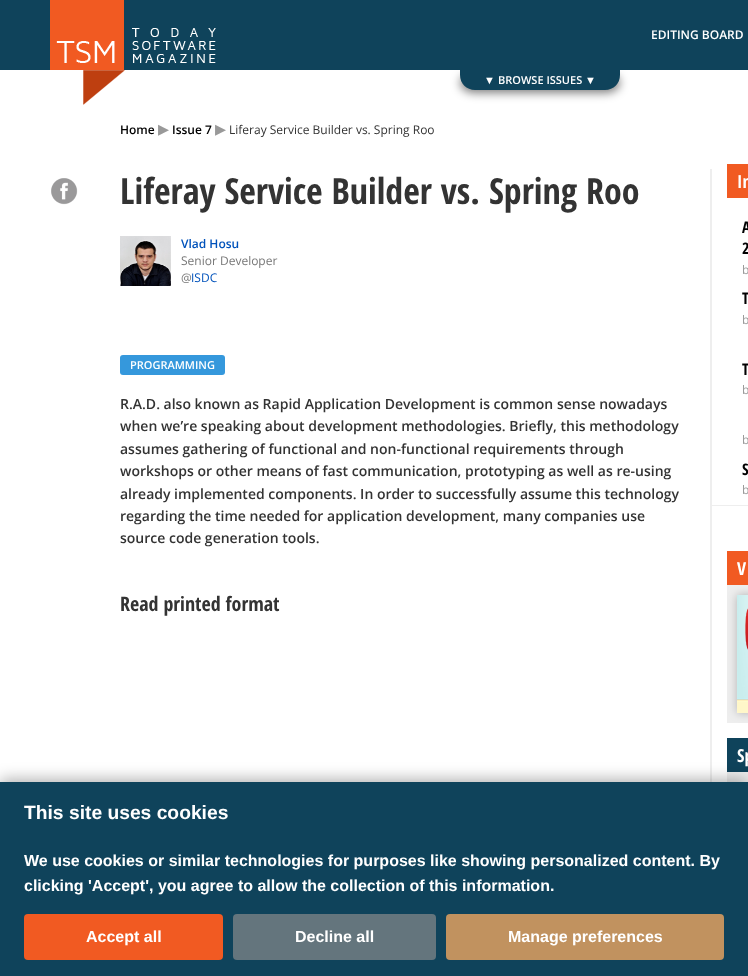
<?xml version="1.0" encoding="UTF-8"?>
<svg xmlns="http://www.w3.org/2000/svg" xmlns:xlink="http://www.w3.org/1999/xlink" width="748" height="976">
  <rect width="100%" height="100%" fill="#ffffff" />
  <rect x="460" y="73" width="160" height="20" rx="15" fill="#000000" fill-opacity="0.5" filter="blur(5px)" />
  <rect width="748" height="70" fill="#0f435b" />
  <image x="50" y="0" width="166" height="105" xlink:href="image1.png" />
  <path d="M 460 70 h 160 v 5 c 0 8.5 -6.5 15 -15 15 h -130 c -8.5 0 -15 -6.5 -15 -15 z" fill="#0f435b" />
  <image x="51" y="178" width="27" height="27" xlink:href="image2.png" />
  <rect x="710" y="169" width="2" height="613" fill="#eeeeee" />
  <image x="120" y="236" width="51" height="50" xlink:href="image3.png" />
  <rect x="120" y="355" width="105" height="20" rx="3" fill="#3598dc" />
  <rect x="727" y="164" width="21" height="34" fill="#f15a22" />
  <rect x="712" y="505" width="36" height="1" fill="#eeeeee" />
  <rect x="727" y="585" width="21" height="138" fill="#eeeeee" />
  <rect x="737" y="595" width="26" height="118" fill="#000000" fill-opacity="0.25" filter="blur(5px)" />
  <rect x="727" y="551" width="21" height="34" fill="#f15a22" />
  <image x="737" y="595" width="11" height="118" xlink:href="image4.png" />
  <rect x="727" y="738" width="21" height="34" fill="#0f435b" />
  <rect x="727" y="772" width="21" height="10" fill="#eeeeee" />
  <rect y="779" width="748" height="194" fill="#000000" fill-opacity="0.3" filter="blur(7.5px)" />
  <rect y="782" width="748" height="194" fill="#0f435b" />
  <rect x="24" y="914" width="199" height="46" rx="4" fill="#f15a22" />
  <rect x="233" y="914" width="203" height="46" rx="4" fill="#64757d" />
  <rect x="446" y="914" width="278" height="46" rx="4" fill="#c1925f" />
  <text x="651" y="39" style="font-family: Open Sans; font-size: 12px; font-weight: 600; fill: #ffffff">EDITING BOARD</text>
  <text x="484" y="84" style="font-family: Liberation Sans; font-size: 11px; font-weight: bold; fill: #ffffff">▼</text>
  <text x="498" y="84" style="font-family: Open Sans; font-size: 11px; font-weight: 600; fill: #ffffff">BROWSE ISSUES</text>
  <text x="585" y="84" style="font-family: Liberation Sans; font-size: 11px; font-weight: bold; fill: #ffffff">▼</text>
  <text x="120" y="134" style="font-family: Open Sans; font-size: 12px; font-weight: 600; fill: #000000">Home</text>
  <text x="158" y="136" style="font-family: DejaVu Sans; font-size: 22px; fill: #999999">▸</text>
  <text x="172" y="134" style="font-family: Open Sans; font-size: 12px; font-weight: 600; fill: #000000">Issue 7</text>
  <text x="215" y="136" style="font-family: DejaVu Sans; font-size: 22px; fill: #999999">▸</text>
  <text x="229" y="134" style="font-family: Open Sans; font-size: 12px; fill: #333333">Liferay Service Builder vs. Spring Roo</text>
  <text x="120" y="204" style="font-family: Open Sans Condensed; font-size: 36px; font-weight: bold; fill: #333333">Liferay Service Builder vs. Spring Roo</text>
  <text x="181" y="248" style="font-family: Open Sans; font-size: 12px; font-weight: 600; fill: #0052bb">Vlad Hosu</text>
  <text x="181" y="265" style="font-family: Open Sans; font-size: 12px; fill: #777777">Senior Developer</text>
  <text x="181" y="282" style="font-family: Open Sans; font-size: 12px; fill: #777777">@</text>
  <text x="191" y="282" style="font-family: Open Sans; font-size: 12px; fill: #0052bb">ISDC</text>
  <text x="130" y="369" style="font-family: Open Sans; font-size: 11px; font-weight: 600; fill: #ffffff">PROGRAMMING</text>
  <text x="120" y="409" style="font-family: Open Sans; font-size: 14px; font-weight: 600; fill: #333333">R.A.D. also known as Rapid Application Development is common sense nowadays</text>
  <text x="120" y="431" style="font-family: Open Sans; font-size: 14px; font-weight: 600; fill: #333333">when we’re speaking about development methodologies. Briefly, this methodology</text>
  <text x="120" y="454" style="font-family: Open Sans; font-size: 14px; font-weight: 600; fill: #333333">assumes gathering of functional and non-functional requirements through</text>
  <text x="120" y="476" style="font-family: Open Sans; font-size: 14px; font-weight: 600; fill: #333333">workshops or other means of fast communication, prototyping as well as re-using</text>
  <text x="120" y="499" style="font-family: Open Sans; font-size: 14px; font-weight: 600; fill: #333333">already implemented components. In order to successfully assume this technology</text>
  <text x="120" y="521" style="font-family: Open Sans; font-size: 14px; font-weight: 600; fill: #333333">regarding the time needed for application development, many companies use</text>
  <text x="120" y="543" style="font-family: Open Sans; font-size: 14px; font-weight: 600; fill: #333333">source code generation tools.</text>
  <text x="120" y="611" style="font-family: Open Sans Condensed; font-size: 20px; font-weight: bold; fill: #333333">Read printed format</text>
  <text x="737" y="188" style="font-family: Open Sans Condensed; font-size: 18px; font-weight: bold; fill: #ffffff">In</text>
  <text x="742" y="233" style="font-family: Open Sans Condensed; font-size: 16px; font-weight: bold; fill: #000000">A</text>
  <text x="742" y="254" style="font-family: Open Sans Condensed; font-size: 16px; font-weight: bold; fill: #000000">2</text>
  <text x="742" y="274" style="font-family: Open Sans; font-size: 12px; fill: #999999">b</text>
  <text x="742" y="304" style="font-family: Open Sans Condensed; font-size: 16px; font-weight: bold; fill: #000000">T</text>
  <text x="742" y="324" style="font-family: Open Sans; font-size: 12px; fill: #999999">b</text>
  <text x="742" y="375" style="font-family: Open Sans Condensed; font-size: 16px; font-weight: bold; fill: #000000">T</text>
  <text x="742" y="394" style="font-family: Open Sans; font-size: 12px; fill: #999999">b</text>
  <text x="742" y="444" style="font-family: Open Sans; font-size: 12px; fill: #999999">b</text>
  <text x="742" y="475" style="font-family: Open Sans Condensed; font-size: 16px; font-weight: bold; fill: #000000">S</text>
  <text x="742" y="494" style="font-family: Open Sans; font-size: 12px; fill: #999999">b</text>
  <text x="737" y="575" style="font-family: Open Sans Condensed; font-size: 18px; font-weight: bold; fill: #ffffff">V</text>
  <text x="737" y="762" style="font-family: Open Sans Condensed; font-size: 18px; font-weight: bold; fill: #ffffff">Sp</text>
  <text x="24" y="819" style="font-family: Liberation Sans; font-size: 19.25px; font-weight: bold; fill: #ffffff">This site uses cookies</text>
  <text x="24" y="866" style="font-family: Liberation Sans; font-size: 16px; font-weight: bold; fill: #ffffff">We use cookies or similar technologies for purposes like showing personalized content. By</text>
  <text x="24" y="891" style="font-family: Liberation Sans; font-size: 16px; font-weight: bold; fill: #ffffff">clicking 'Accept', you agree to allow the collection of this information.</text>
  <text x="86" y="942" style="font-family: Liberation Sans; font-size: 16px; font-weight: bold; fill: #ffffff">Accept all</text>
  <text x="295" y="942" style="font-family: Liberation Sans; font-size: 16px; font-weight: bold; fill: #ffffff">Decline all</text>
  <text x="508" y="942" style="font-family: Liberation Sans; font-size: 16px; font-weight: bold; fill: #ffffff">Manage preferences</text>
</svg>
